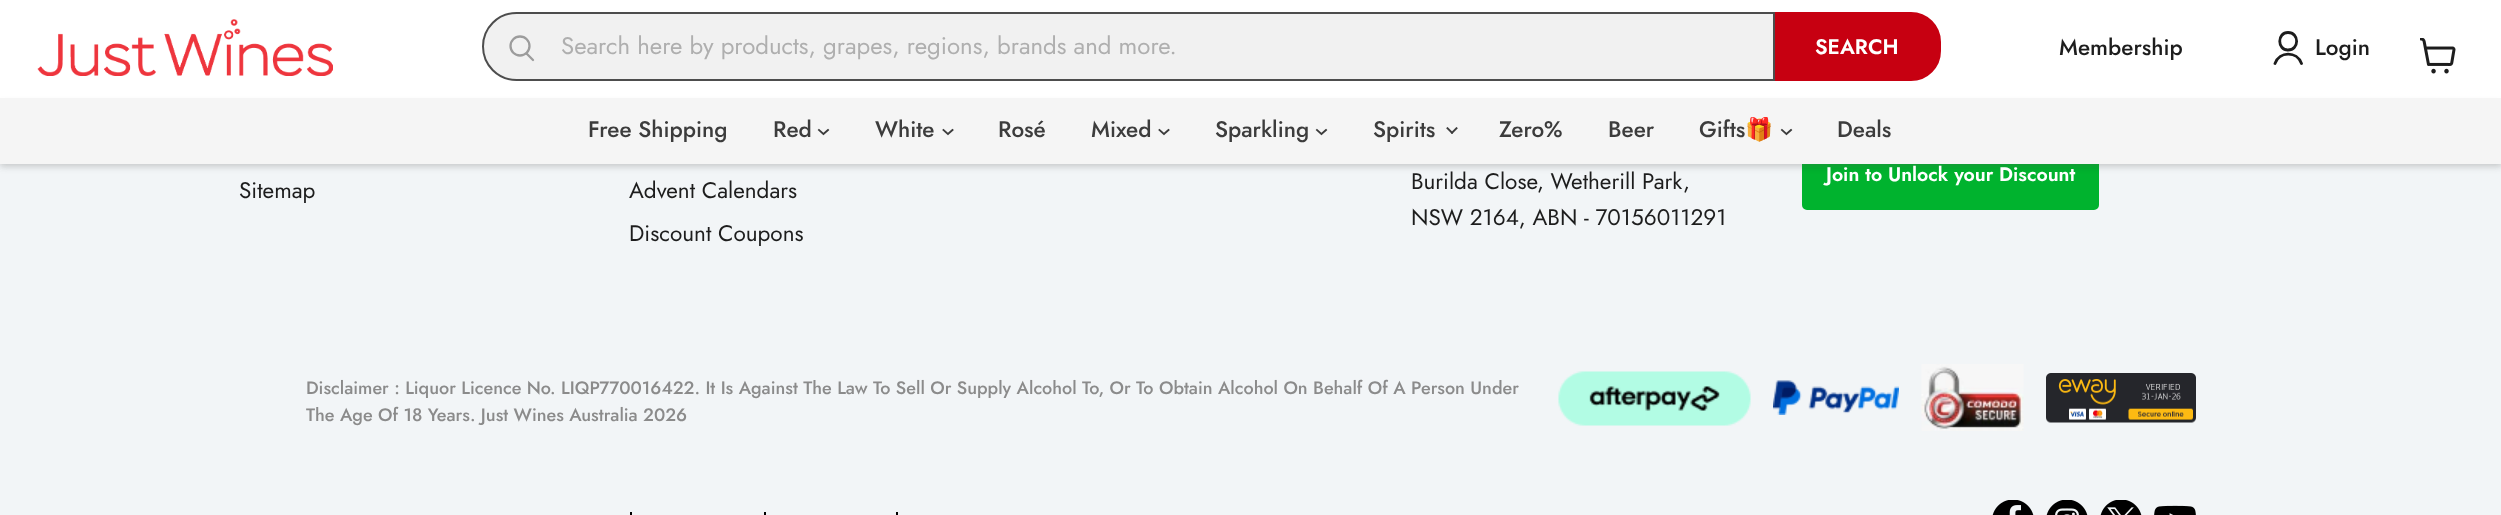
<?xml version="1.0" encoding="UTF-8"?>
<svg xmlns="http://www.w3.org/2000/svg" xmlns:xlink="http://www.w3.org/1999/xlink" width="2501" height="515">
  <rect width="100%" height="100%" fill="#f2f5f7" />
  <rect x="1803" y="144" width="295" height="65" rx="4" fill="#00b32e" stroke="#00b32e" stroke-width="2" />
  <rect width="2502" height="165" fill="#808080" fill-opacity="0.25" filter="blur(3px)" />
  <rect width="2501" height="98" fill="#ffffff" />
  <image x="37" y="19" width="296" height="57" xlink:href="image1.png" />
  <path d="M 516.5 13 h 1257.5 v 67 h -1257.5 c -18.5 0 -33.5 -15 -33.5 -33.5 c 0 -18.5 15 -33.5 33.5 -33.5 z" fill="#f1f1f1" stroke="#4d4d4d" stroke-width="2" />
  <path d="M 533 60 l -6.5 -6.5" fill="none" stroke="#9c9c9c" stroke-width="2.3" stroke-linecap="round" />
  <circle cx="520" cy="46" r="9.5" fill="none" stroke="#9c9c9c" stroke-width="2.3" />
  <path d="M 1776 13 h 135 c 16 0 29 13 29 29 v 9 c 0 16 -13 29 -29 29 h -135 z" fill="#c70011" stroke="#c70011" stroke-width="2" />
  <path d="M 2288 50 c 11.5 0 11.5 -17.5 0 -17.5 c -11 0 -11 17.5 0 17.5 z m 13.5 13.5 c -4.5 -12.5 -22 -12.5 -26.5 0" fill="none" stroke="#1d1d1d" stroke-width="2.8" stroke-linecap="round" stroke-linejoin="round" />
  <image x="2420" y="38" width="36" height="36" xlink:href="image2.png" />
  <rect y="102" width="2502" height="66" fill="#000000" fill-opacity="0.08" filter="blur(3px)" />
  <rect y="98" width="2501" height="66" fill="#f5f5f5" />
  <path d="M 823.5 134 l 4.5 -4 m -4.5 4 l -4.5 -4" fill="none" stroke="#3c3c3c" stroke-width="1.9" stroke-linecap="square" />
  <path d="M 948 134 l 4.5 -4 m -4.5 4 l -4.5 -4" fill="none" stroke="#3c3c3c" stroke-width="1.9" stroke-linecap="square" />
  <path d="M 1164 134 l 4.5 -4 m -4.5 4 l -4.5 -4" fill="none" stroke="#3c3c3c" stroke-width="1.9" stroke-linecap="square" />
  <path d="M 1321.5 134 l 4.5 -4 m -4.5 4 l -4.5 -4" fill="none" stroke="#3c3c3c" stroke-width="1.9" stroke-linecap="square" />
  <image x="1446" y="127" width="12" height="7" xlink:href="image3.png" />
  <path d="M 1786.5 134 l 4.5 -4 m -4.5 4 l -4.5 -4" fill="none" stroke="#3c3c3c" stroke-width="1.9" stroke-linecap="square" />
  <image x="1558" y="371" width="193" height="55" xlink:href="image4.png" />
  <image x="1773" y="380" width="126" height="35" xlink:href="image5.png" />
  <image x="1921" y="364" width="103" height="67" xlink:href="image6.png" />
  <image x="2046" y="373" width="150" height="50" xlink:href="image7.png" />
  <rect x="630" y="512" width="2" height="3" fill="#000000" />
  <rect x="764" y="512" width="2" height="3" fill="#000000" />
  <rect x="896" y="512" width="2" height="3" fill="#000000" />
  <image x="1992" y="500" width="42" height="15" xlink:href="image8.png" />
  <image x="2046" y="500" width="42" height="15" xlink:href="image9.png" />
  <image x="2100" y="500" width="42" height="15" xlink:href="image10.png" />
  <image x="2154" y="505" width="42" height="10" xlink:href="image11.png" />
  <text x="561" y="54" style="font-family: Jost; font-size: 24px; fill: #afafaf">Search here by products, grapes, regions, brands and more.</text>
  <text x="1815" y="54" style="font-family: Jost; font-size: 21px; font-weight: 600; fill: #ffffff">SEARCH</text>
  <text x="2059" y="55" style="font-family: Jost; font-size: 22.5px; font-weight: 500; fill: #1d1d1d">Membership</text>
  <text x="2315" y="55" style="font-family: Jost; font-size: 22.5px; font-weight: 500; fill: #1d1d1d">Login</text>
  <text x="588" y="137" style="font-family: Jost; font-size: 22.5px; font-weight: 500; fill: #3c3c3c">Free Shipping</text>
  <text x="773" y="137" style="font-family: Jost; font-size: 22.5px; font-weight: 500; fill: #3c3c3c">Red</text>
  <text x="875" y="137" style="font-family: Jost; font-size: 22.5px; font-weight: 500; fill: #3c3c3c">White</text>
  <text x="998" y="137" style="font-family: Jost; font-size: 22.5px; font-weight: 500; fill: #3c3c3c">Rosé</text>
  <text x="1091" y="137" style="font-family: Jost; font-size: 22.5px; font-weight: 500; fill: #3c3c3c">Mixed</text>
  <text x="1215" y="137" style="font-family: Jost; font-size: 22.5px; font-weight: 500; fill: #3c3c3c">Sparkling</text>
  <text x="1373" y="137" style="font-family: Jost; font-size: 22.5px; font-weight: 500; fill: #3c3c3c">Spirits</text>
  <text x="1499" y="137" style="font-family: Jost; font-size: 22.5px; font-weight: 500; fill: #3c3c3c">Zero%</text>
  <text x="1608" y="137" style="font-family: Jost; font-size: 22.5px; font-weight: 500; fill: #3c3c3c">Beer</text>
  <text x="1699" y="137" style="font-family: Jost; font-size: 22.5px; font-weight: 500; fill: #3c3c3c">Gifts</text>
  <text x="1745" y="137" style="font-family: Noto Color Emoji; font-size: 22.5px; fill: #3c3c3c">🎁</text>
  <text x="1837" y="137" style="font-family: Jost; font-size: 22.5px; font-weight: 500; fill: #3c3c3c">Deals</text>
  <text x="239" y="198" style="font-family: Jost; font-size: 22.5px; fill: #1d1d1d">Sitemap</text>
  <text x="629" y="198" style="font-family: Jost; font-size: 22.5px; fill: #1d1d1d">Advent Calendars</text>
  <text x="629" y="241" style="font-family: Jost; font-size: 22.5px; fill: #1d1d1d">Discount Coupons</text>
  <text x="1411" y="189" style="font-family: Jost; font-size: 22.5px; fill: #1d1d1d">Burilda Close, Wetherill Park,</text>
  <text x="1411" y="225" style="font-family: Jost; font-size: 22.5px; fill: #1d1d1d">NSW 2164, ABN - 70156011291</text>
  <text x="1826" y="181" style="font-family: Jost; font-size: 19.5px; font-weight: 600; fill: #ffffff">Join to Unlock your Discount</text>
  <text x="306" y="394" style="font-family: Jost; font-size: 18px; font-weight: 500; fill: #8b8b8b">Disclaimer : Liquor Licence No. LIQP770016422. It Is Against The Law To Sell Or Supply Alcohol To, Or To Obtain Alcohol On Behalf Of A Person Under</text>
  <text x="306" y="421" style="font-family: Jost; font-size: 18px; font-weight: 500; fill: #8b8b8b">The Age Of 18 Years. Just Wines Australia 2026</text>
</svg>
